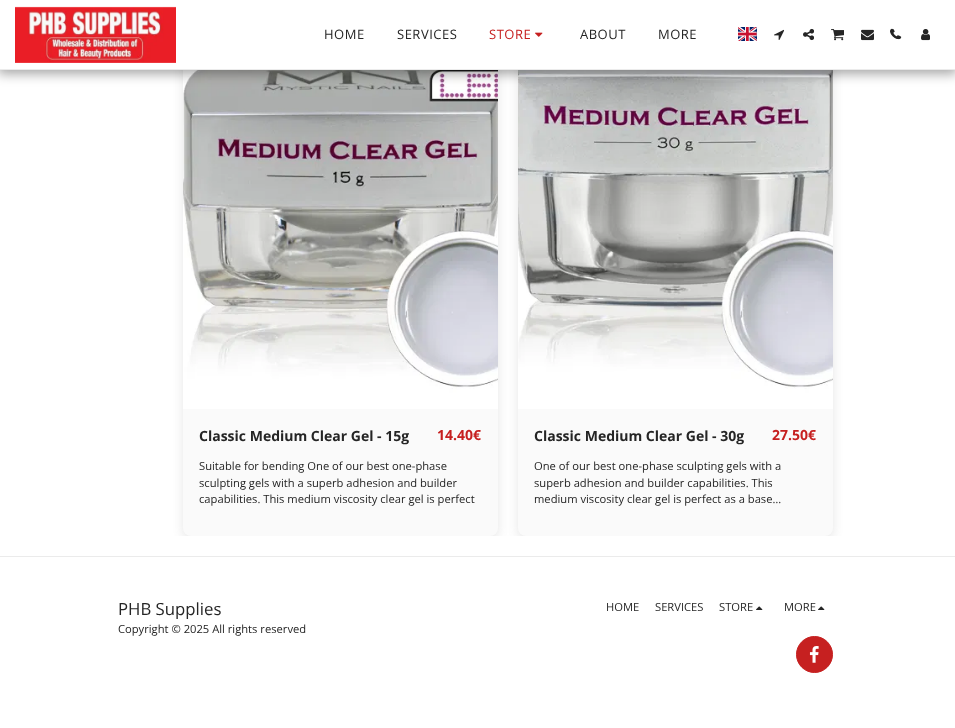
<?xml version="1.0" encoding="UTF-8"?>
<svg xmlns="http://www.w3.org/2000/svg" xmlns:xlink="http://www.w3.org/1999/xlink" width="955" height="728">
  <defs>
    <clipPath id="clip1"><rect x="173" y="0" width="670" height="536" /></clipPath>
  </defs>
  <rect width="100%" height="100%" fill="#ffffff" />
  <rect y="556" width="955" height="1" fill="#ebebeb" />
  <g clip-path="url(#clip1)">
    <rect x="183" y="-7" width="315" height="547" rx="8" fill="#818181" fill-opacity="0.2" filter="blur(6px)" />
  </g>
  <rect x="183" y="-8" width="315" height="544" rx="8" fill="#fafafa" />
  <image x="183" y="70" width="315" height="339" xlink:href="image11.png" />
  <g clip-path="url(#clip1)">
    <rect x="518" y="-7" width="315" height="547" rx="8" fill="#818181" fill-opacity="0.2" filter="blur(6px)" />
  </g>
  <rect x="518" y="-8" width="315" height="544" rx="8" fill="#fafafa" />
  <image x="518" y="70" width="315" height="339" xlink:href="image12.png" />
  <rect x="-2" width="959" height="74" fill="#000000" fill-opacity="0.35" filter="blur(6px)" />
  <rect width="955" height="69" fill="#ffffff" />
  <rect y="69" width="955" height="1" fill="#ebebeb" />
  <image x="15" y="6" width="161" height="57" xlink:href="image1.png" />
  <image x="535" y="32" width="8" height="5" xlink:href="image2.png" />
  <image x="738" y="27" width="19" height="14" xlink:href="image3.png" />
  <image x="774" y="29" width="10" height="11" xlink:href="image4.png" />
  <image x="803" y="28" width="11" height="13" xlink:href="image5.png" />
  <image x="831" y="29" width="13" height="12" xlink:href="image6.png" />
  <image x="861" y="29" width="13" height="12" xlink:href="image7.png" />
  <image x="891" y="29" width="11" height="11" xlink:href="image8.png" />
  <image x="890" y="28" width="11" height="11" xlink:href="image9.png" />
  <image x="921" y="29" width="9" height="12" xlink:href="image10.png" />
  <image x="756" y="606" width="7" height="4" xlink:href="image13.png" />
  <image x="818" y="606" width="7" height="4" xlink:href="image13.png" />
  <circle cx="814.5" cy="654.5" r="18" fill="#c62020" stroke="#c62020" />
  <image x="809" y="646" width="10" height="17" xlink:href="image14.png" />
  <text x="324" y="39" style="font-family: Open Sans; font-size: 13px; letter-spacing: 0.5px; fill: #252525">HOME</text>
  <text x="397" y="39" style="font-family: Open Sans; font-size: 13px; letter-spacing: 0.5px; fill: #252525">SERVICES</text>
  <text x="489" y="39" style="font-family: Open Sans; font-size: 13px; letter-spacing: 0.5px; fill: #c62020">STORE</text>
  <text x="580" y="39" style="font-family: Open Sans; font-size: 13px; letter-spacing: 0.5px; fill: #252525">ABOUT</text>
  <text x="658" y="39" style="font-family: Open Sans; font-size: 13px; letter-spacing: 0.5px; fill: #252525">MORE</text>
  <text x="199" y="441" style="font-family: Open Sans; font-size: 14px; font-weight: bold; fill: #252525">Classic Medium Clear Gel - 15g</text>
  <text x="437" y="440" style="font-family: Open Sans; font-size: 14px; font-weight: bold; fill: #c62020">14.40€</text>
  <text x="199" y="470" style="font-family: Open Sans; font-size: 11.2px; fill: #252525">Suitable for bending One of our best one-phase</text>
  <text x="199" y="487" style="font-family: Open Sans; font-size: 11.2px; fill: #252525">sculpting gels with a superb adhesion and builder</text>
  <text x="199" y="503" style="font-family: Open Sans; font-size: 11.2px; fill: #252525">capabilities. This medium viscosity clear gel is perfect</text>
  <text x="534" y="441" style="font-family: Open Sans; font-size: 14px; font-weight: bold; fill: #252525">Classic Medium Clear Gel - 30g</text>
  <text x="772" y="440" style="font-family: Open Sans; font-size: 14px; font-weight: bold; fill: #c62020">27.50€</text>
  <text x="534" y="470" style="font-family: Open Sans; font-size: 11.2px; fill: #252525">One of our best one-phase sculpting gels with a</text>
  <text x="534" y="487" style="font-family: Open Sans; font-size: 11.2px; fill: #252525">superb adhesion and builder capabilities. This</text>
  <text x="534" y="503" style="font-family: Open Sans; font-size: 11.2px; fill: #252525">medium viscosity clear gel is perfect as a base…</text>
  <text x="118" y="615" style="font-family: Open Sans; font-size: 16.75px; fill: #252525">PHB Supplies</text>
  <text x="118" y="633" style="font-family: Open Sans; font-size: 11.2px; fill: #252525">Copyright © 2025 All rights reserved</text>
  <text x="606" y="611" style="font-family: Open Sans; font-size: 11.2px; fill: #252525">HOME</text>
  <text x="655" y="611" style="font-family: Open Sans; font-size: 11.2px; fill: #252525">SERVICES</text>
  <text x="719" y="611" style="font-family: Open Sans; font-size: 11.2px; fill: #252525">STORE</text>
  <text x="784" y="611" style="font-family: Open Sans; font-size: 11.2px; fill: #252525">MORE</text>
</svg>
